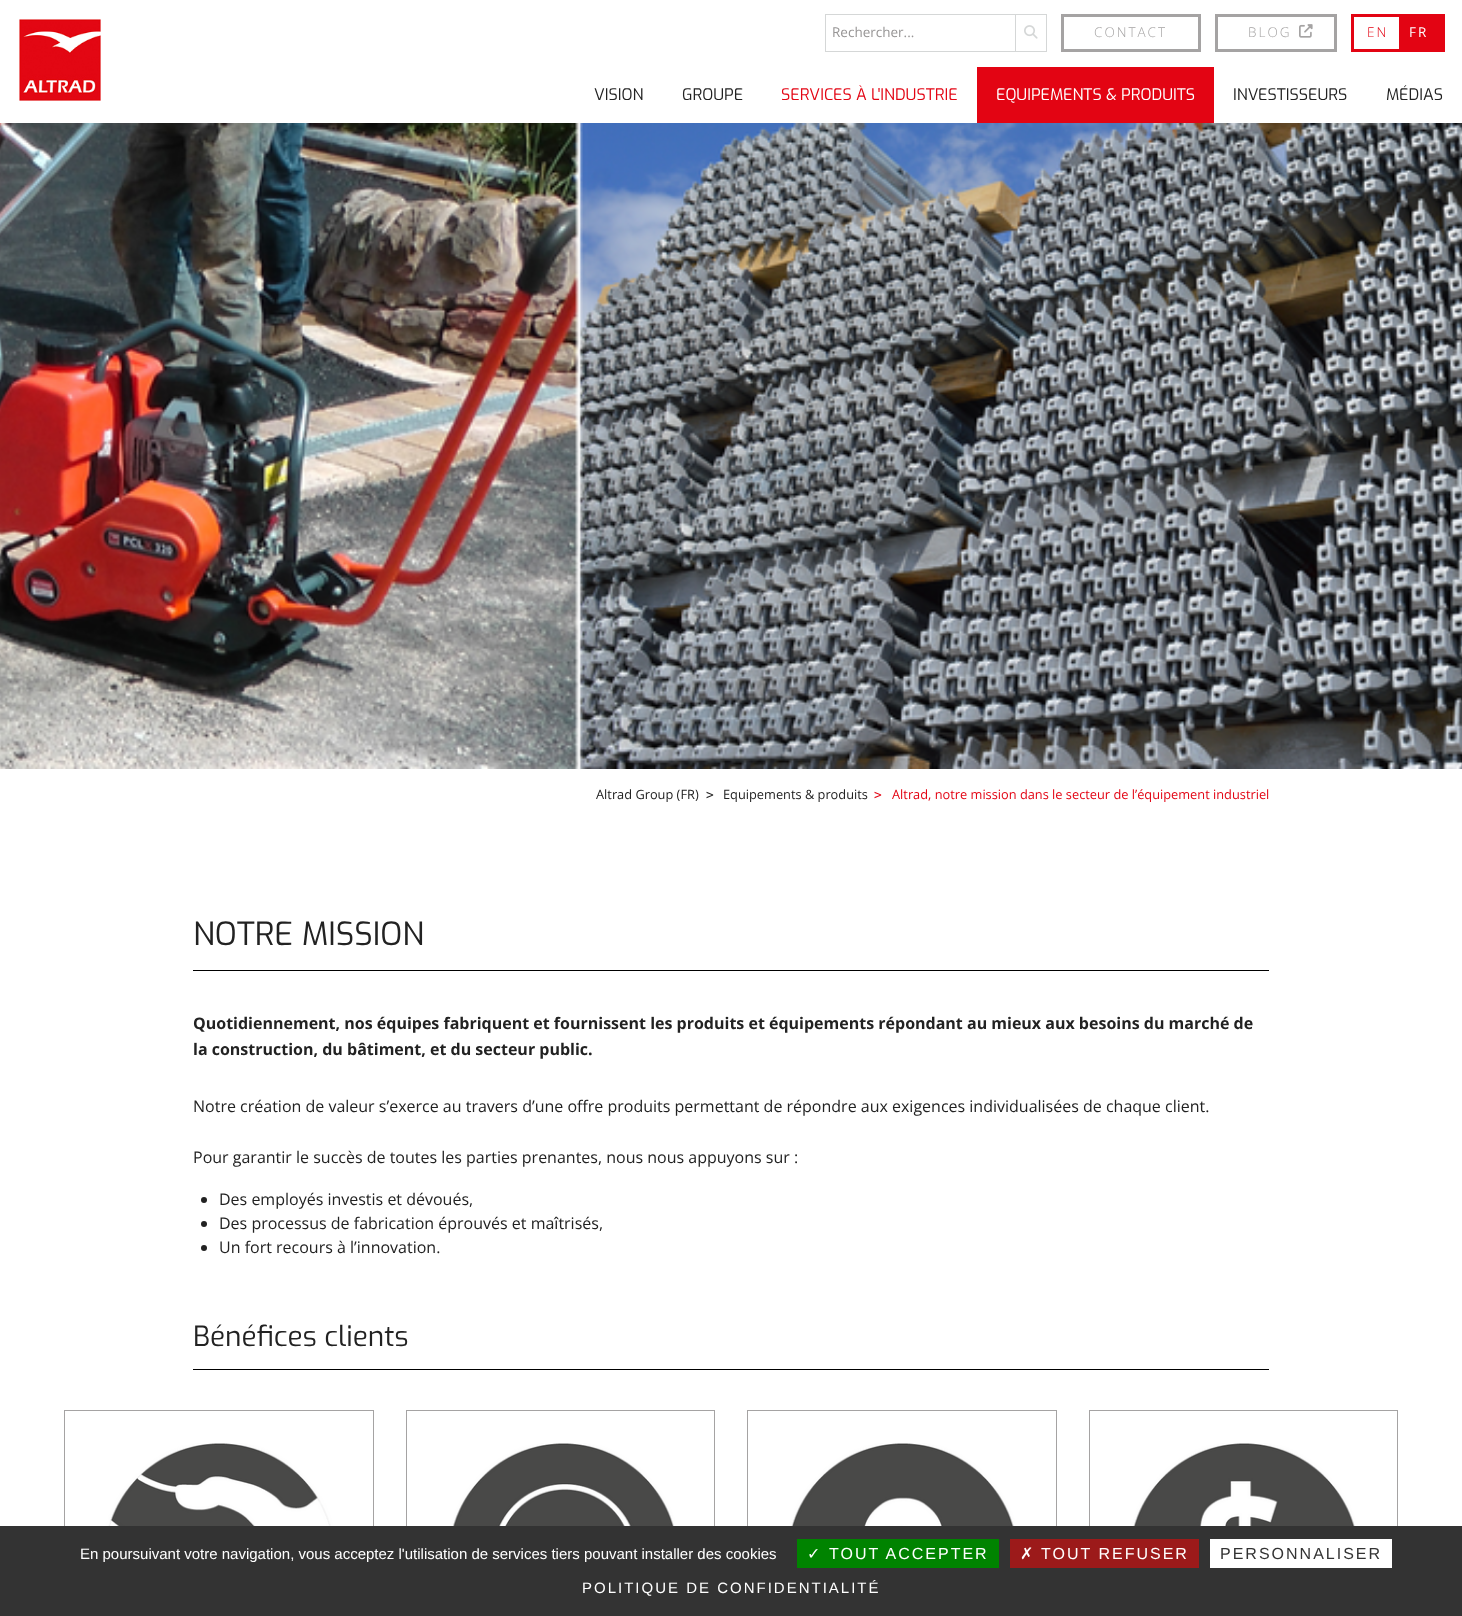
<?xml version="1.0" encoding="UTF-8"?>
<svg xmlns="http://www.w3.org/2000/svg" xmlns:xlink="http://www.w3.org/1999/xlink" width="1462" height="1616">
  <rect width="100%" height="100%" fill="#ffffff" />
  <image x="19" y="19" width="82" height="82" xlink:href="image1.png" />
  <rect x="825" y="14" width="190" height="1" fill="#d5d7d7" />
  <rect x="825" y="51" width="190" height="1" fill="#d5d7d7" />
  <rect x="825" y="14" width="1" height="38" fill="#d5d7d7" />
  <rect x="1015.5" y="14.5" width="31" height="37" fill="none" stroke="#d5d7d7" />
  <image x="1024" y="25" width="14" height="14" xlink:href="image2.png" />
  <rect x="1062.5" y="15.5" width="137" height="35" fill="none" stroke="#a5a3a3" stroke-width="3" />
  <rect x="1216.5" y="15.5" width="119" height="35" fill="none" stroke="#a5a3a3" stroke-width="3" />
  <image x="1299" y="24" width="14" height="14" xlink:href="image3.png" />
  <rect x="1351" y="14" width="48" height="3" fill="#e30413" />
  <rect x="1351" y="49" width="48" height="3" fill="#e30413" />
  <rect x="1351" y="14" width="3" height="38" fill="#e30413" />
  <rect x="1399" y="14" width="46" height="38" fill="#e30413" />
  <rect x="977" y="67" width="237" height="56" fill="#e30413" />
  <image x="0" y="123" width="1462" height="646" xlink:href="image4.png" />
  <rect x="193" y="970" width="1076" height="1" fill="#000000" />
  <circle cx="204" cy="1200" r="3" fill="#222222" />
  <circle cx="204" cy="1224" r="3" fill="#222222" />
  <circle cx="204" cy="1248" r="3" fill="#222222" />
  <rect x="193" y="1369" width="1076" height="1" fill="#000000" />
  <rect x="64.5" y="1410.5" width="309" height="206" fill="none" stroke="#a5a3a3" />
  <image x="104" y="1443" width="231" height="83" xlink:href="image5.png" />
  <rect x="406.5" y="1410.5" width="308" height="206" fill="none" stroke="#a5a3a3" />
  <image x="448" y="1443" width="231" height="83" xlink:href="image6.png" />
  <rect x="747.5" y="1410.5" width="309" height="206" fill="none" stroke="#a5a3a3" />
  <image x="787" y="1443" width="232" height="83" xlink:href="image7.png" />
  <rect x="1089.5" y="1410.5" width="308" height="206" fill="none" stroke="#a5a3a3" />
  <image x="1129" y="1443" width="231" height="83" xlink:href="image8.png" />
  <rect y="1526" width="1462" height="90" fill="#333333" />
  <rect x="797" y="1539" width="202" height="29" fill="#008300" />
  <rect x="1010" y="1539" width="189" height="29" fill="#9c1a1a" />
  <rect x="1210" y="1539" width="182" height="29" fill="#ffffff" />
  <text x="832" y="37" style="font-family: Open Sans; font-size: 13.5px; fill: #979595">Rechercher...</text>
  <text x="1094" y="37" style="font-family: Open Sans; font-size: 13.5px; font-weight: 300; letter-spacing: 2px; fill: #a5a3a3">CONTACT</text>
  <text x="1248" y="37" style="font-family: Open Sans; font-size: 13.5px; font-weight: 300; letter-spacing: 2px; fill: #a5a3a3">BLOG</text>
  <text x="1367" y="37" style="font-family: Open Sans; font-size: 13.5px; font-weight: 300; letter-spacing: 2px; fill: #e30413">EN</text>
  <text x="1409" y="37" style="font-family: Open Sans; font-size: 13.5px; letter-spacing: 2px; fill: #ffffff">FR</text>
  <text x="594" y="100" style="font-family: Exo; font-size: 16px; fill: #222222">VISION</text>
  <text x="682" y="100" style="font-family: Exo; font-size: 16px; fill: #222222">GROUPE</text>
  <text x="781" y="100" style="font-family: Exo; font-size: 16px; fill: #e30413">SERVICES À L'INDUSTRIE</text>
  <text x="996" y="100" style="font-family: Exo; font-size: 16px; fill: #ffffff">EQUIPEMENTS &amp; PRODUITS</text>
  <text x="1233" y="100" style="font-family: Exo; font-size: 16px; fill: #222222">INVESTISSEURS</text>
  <text x="1386" y="100" style="font-family: Exo; font-size: 16px; fill: #222222">MÉDIAS</text>
  <text x="596" y="799" style="font-family: Open Sans; font-size: 12.8px; fill: #222222">Altrad Group (FR)</text>
  <text x="706" y="799" style="font-family: DejaVu Sans Mono; font-size: 12.8px; fill: #222222">&gt;</text>
  <text x="723" y="799" style="font-family: Open Sans; font-size: 12.8px; fill: #222222">Equipements &amp; produits</text>
  <text x="874" y="799" style="font-family: DejaVu Sans Mono; font-size: 12.8px; fill: #e30413">&gt;</text>
  <text x="892" y="799" style="font-family: Open Sans; font-size: 12.8px; fill: #e30413">Altrad, notre mission dans le secteur de l’équipement industriel</text>
  <text x="193" y="945" style="font-family: Exo; font-size: 32px; fill: #222222">NOTRE MISSION</text>
  <text x="193" y="1029" style="font-family: Open Sans; font-size: 16px; font-weight: bold; fill: #222222">Quotidiennement, nos équipes fabriquent et fournissent les produits et équipements répondant au mieux aux besoins du marché de</text>
  <text x="193" y="1055" style="font-family: Open Sans; font-size: 16px; font-weight: bold; fill: #222222">la construction, du bâtiment, et du secteur public.</text>
  <text x="193" y="1112" style="font-family: Open Sans; font-size: 16px; fill: #222222">Notre création de valeur s’exerce au travers d’une offre produits permettant de répondre aux exigences individualisées de chaque client.</text>
  <text x="193" y="1163" style="font-family: Open Sans; font-size: 16px; fill: #222222">Pour garantir le succès de toutes les parties prenantes, nous nous appuyons sur :</text>
  <text x="219" y="1205" style="font-family: Open Sans; font-size: 16px; fill: #222222">Des employés investis et dévoués,</text>
  <text x="219" y="1229" style="font-family: Open Sans; font-size: 16px; fill: #222222">Des processus de fabrication éprouvés et maîtrisés,</text>
  <text x="219" y="1253" style="font-family: Open Sans; font-size: 16px; fill: #222222">Un fort recours à l’innovation.</text>
  <text x="193" y="1346" style="font-family: Exo; font-size: 28px; fill: #222222">Bénéfices clients</text>
  <text x="80" y="1559" style="font-family: Liberation Sans; font-size: 15px; fill: #ffffff">En poursuivant votre navigation, vous acceptez l'utilisation de services tiers pouvant installer des cookies</text>
  <text x="807" y="1559" style="font-family: DejaVu Sans; font-size: 16px; letter-spacing: 2px; fill: #ffffff">✓</text>
  <text x="829" y="1559" style="font-family: Liberation Sans; font-size: 16px; letter-spacing: 2px; fill: #ffffff">TOUT ACCEPTER</text>
  <text x="1020" y="1559" style="font-family: DejaVu Sans; font-size: 16px; letter-spacing: 2px; fill: #ffffff">✗</text>
  <text x="1041" y="1559" style="font-family: Liberation Sans; font-size: 16px; letter-spacing: 2px; fill: #ffffff">TOUT REFUSER</text>
  <text x="1220" y="1559" style="font-family: Liberation Sans; font-size: 16px; letter-spacing: 2px; fill: #333333">PERSONNALISER</text>
  <text x="582" y="1593" style="font-family: Liberation Sans; font-size: 15px; letter-spacing: 2px; fill: #ffffff">POLITIQUE DE CONFIDENTIALITÉ</text>
</svg>
